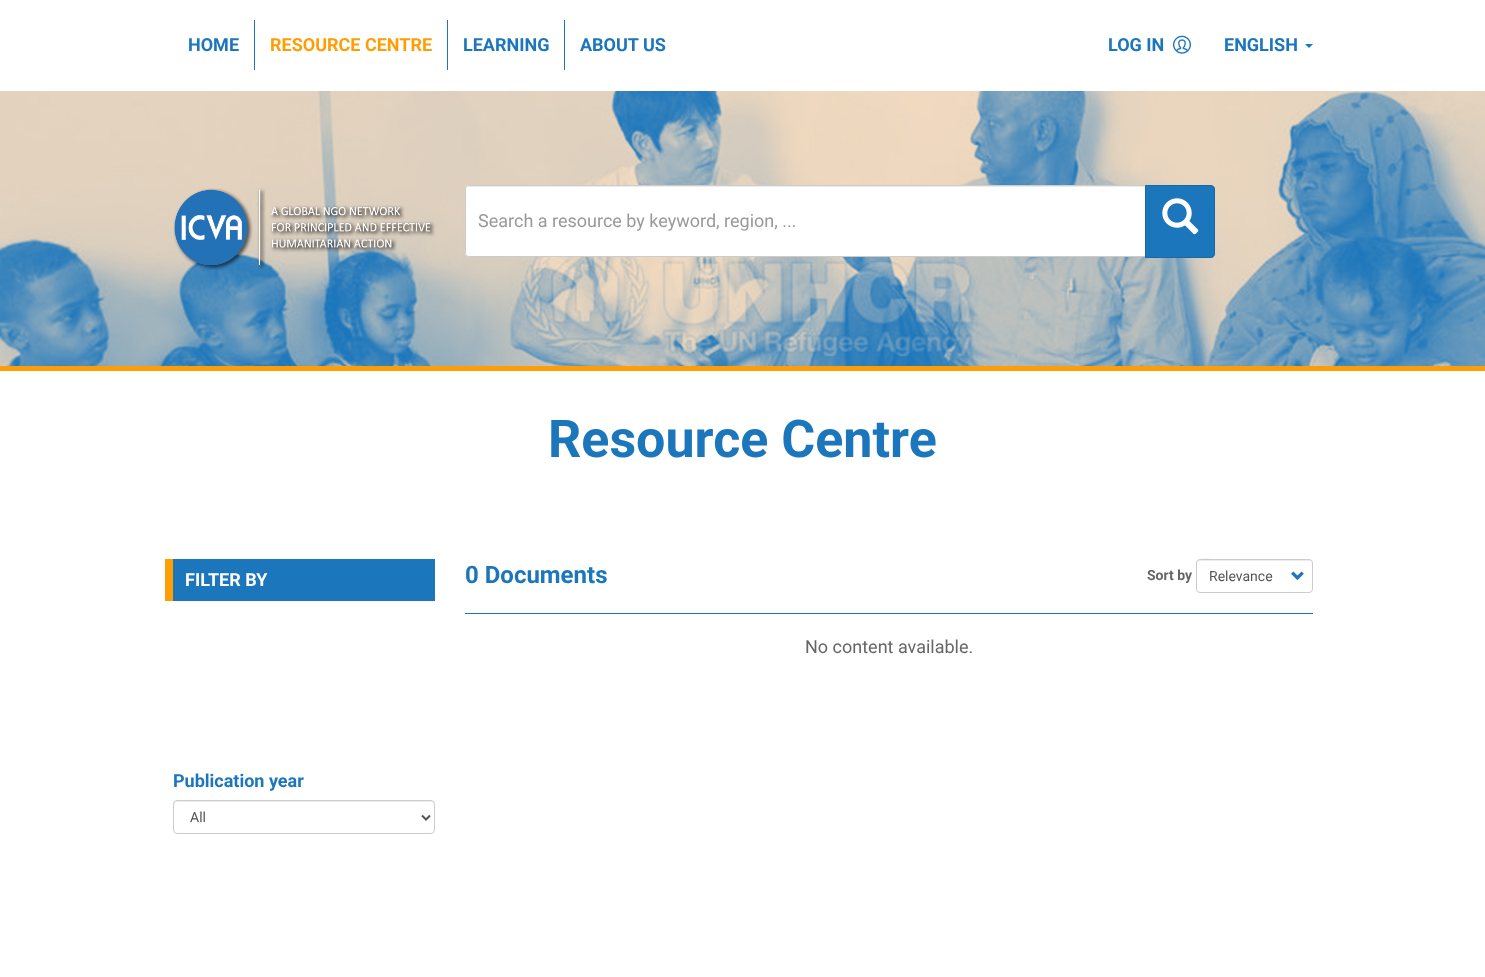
<?xml version="1.0" encoding="UTF-8"?>
<svg xmlns="http://www.w3.org/2000/svg" xmlns:xlink="http://www.w3.org/1999/xlink" width="1485" height="977">
  <rect width="100%" height="100%" fill="#ffffff" />
  <rect x="254" y="20" width="1" height="50" fill="#1b76bc" />
  <rect x="447" y="20" width="1" height="50" fill="#1b76bc" />
  <rect x="564" y="20" width="1" height="50" fill="#1b76bc" />
  <image x="1173" y="35" width="18" height="19" xlink:href="image1.png" />
  <path d="M 1305 44 h 8 l -4 4 z" fill="#1b76bc" />
  <rect y="366" width="1485" height="5" fill="#ff9d05" />
  <image x="0" y="91" width="1485" height="275" xlink:href="image2.png" />
  <image x="173" y="188" width="262" height="82" xlink:href="image3.png" />
  <path d="M 469 185 h 677 v 72 h -677 c -2 0 -4 -2 -4 -4 v -64 c 0 -2 2 -4 4 -4 z" fill="#ffffff" />
  <path d="M 469 187 h 676 v -1 h -676 c -2 0 -3 1 -3 3 v 1 c 0 -2 1 -3 3 -3 z" fill="#ececec" />
  <path d="M 469 185.5 h 676.5 v 71 h -676.5 c -2 0 -3.5 -1.5 -3.5 -3.5 v -64 c 0 -2 1.5 -3.5 3.5 -3.5 z" fill="none" stroke="#cccccc" />
  <path d="M 1145.5 185.5 h 65.5 c 2 0 3.5 1.5 3.5 3.5 v 65 c 0 2 -1.5 3.5 -3.5 3.5 h -65.5 z" fill="#1b76bc" stroke="#1868a6" />
  <image x="1162" y="198" width="37" height="37" xlink:href="image4.png" />
  <rect x="173" y="559" width="262" height="42" fill="#1b76bc" />
  <rect x="165" y="559" width="8" height="42" fill="#ff9d05" />
  <path d="M 177 802 h 255 l 2 1 v 2 v -1 c 0 -2 -1 -3 -3 -3 h -254 c -2 0 -3 1 -3 3 v 1 c 0 -2 1 -3 3 -3 z" fill="#ececec" />
  <rect x="173.5" y="800.5" width="261" height="33" rx="3.5" fill="none" stroke="#cccccc" />
  <path d="M 422 815.5 l 4 4 l 4 -4" fill="none" stroke="#555555" stroke-width="2" />
  <rect x="465" y="613" width="848" height="1" fill="#1b76bc" />
  <path d="M 1200 561 h 109 c 2 0 3 1 3 3 c 0 -2 -1 -4 -3 -4 h -91 c -1 0 -21 -5 -21 4 c 0 -2 1 -3 3 -3 z" fill="#ececec" />
  <rect x="1196.5" y="559.5" width="116" height="33" rx="3.5" fill="none" stroke="#cccccc" />
  <image x="1291" y="571" width="13" height="10" xlink:href="image5.png" />
  <text x="188" y="51" style="font-family: Roboto; font-size: 18px; font-weight: bold; fill: #1b76bc">HOME</text>
  <text x="270" y="51" style="font-family: Roboto; font-size: 18px; font-weight: bold; fill: #ff9d05">RESOURCE CENTRE</text>
  <text x="463" y="51" style="font-family: Roboto; font-size: 18px; font-weight: bold; fill: #1b76bc">LEARNING</text>
  <text x="580" y="51" style="font-family: Roboto; font-size: 18px; font-weight: bold; fill: #1b76bc">ABOUT US</text>
  <text x="1108" y="51" style="font-family: Roboto; font-size: 18px; font-weight: bold; fill: #1b76bc">LOG IN</text>
  <text x="1224" y="51" style="font-family: Roboto; font-size: 18px; font-weight: bold; fill: #1b76bc">ENGLISH</text>
  <text x="478" y="227" style="font-family: Roboto; font-size: 18px; fill: #999999">Search a resource by keyword, region, ...</text>
  <text x="548" y="457" style="font-family: Roboto; font-size: 52px; font-weight: bold; fill: #1b76bc">Resource Centre</text>
  <text x="185" y="586" style="font-family: Roboto; font-size: 18px; font-weight: bold; fill: #ffffff">FILTER BY</text>
  <text x="173" y="787" style="font-family: Roboto; font-size: 18px; font-weight: bold; fill: #1b76bc">Publication year</text>
  <text x="190" y="822" style="font-family: Roboto; font-size: 14px; fill: #555555">All</text>
  <text x="465" y="583" style="font-family: Roboto; font-size: 24px; font-weight: bold; fill: #1b76bc">0 Documents</text>
  <text x="1147" y="580" style="font-family: Roboto; font-size: 14px; font-weight: bold; fill: #666666">Sort by</text>
  <text x="1209" y="581" style="font-family: Roboto; font-size: 14px; fill: #555555">Relevance</text>
  <text x="805" y="653" style="font-family: Roboto; font-size: 18px; fill: #666666">No content available.</text>
</svg>
